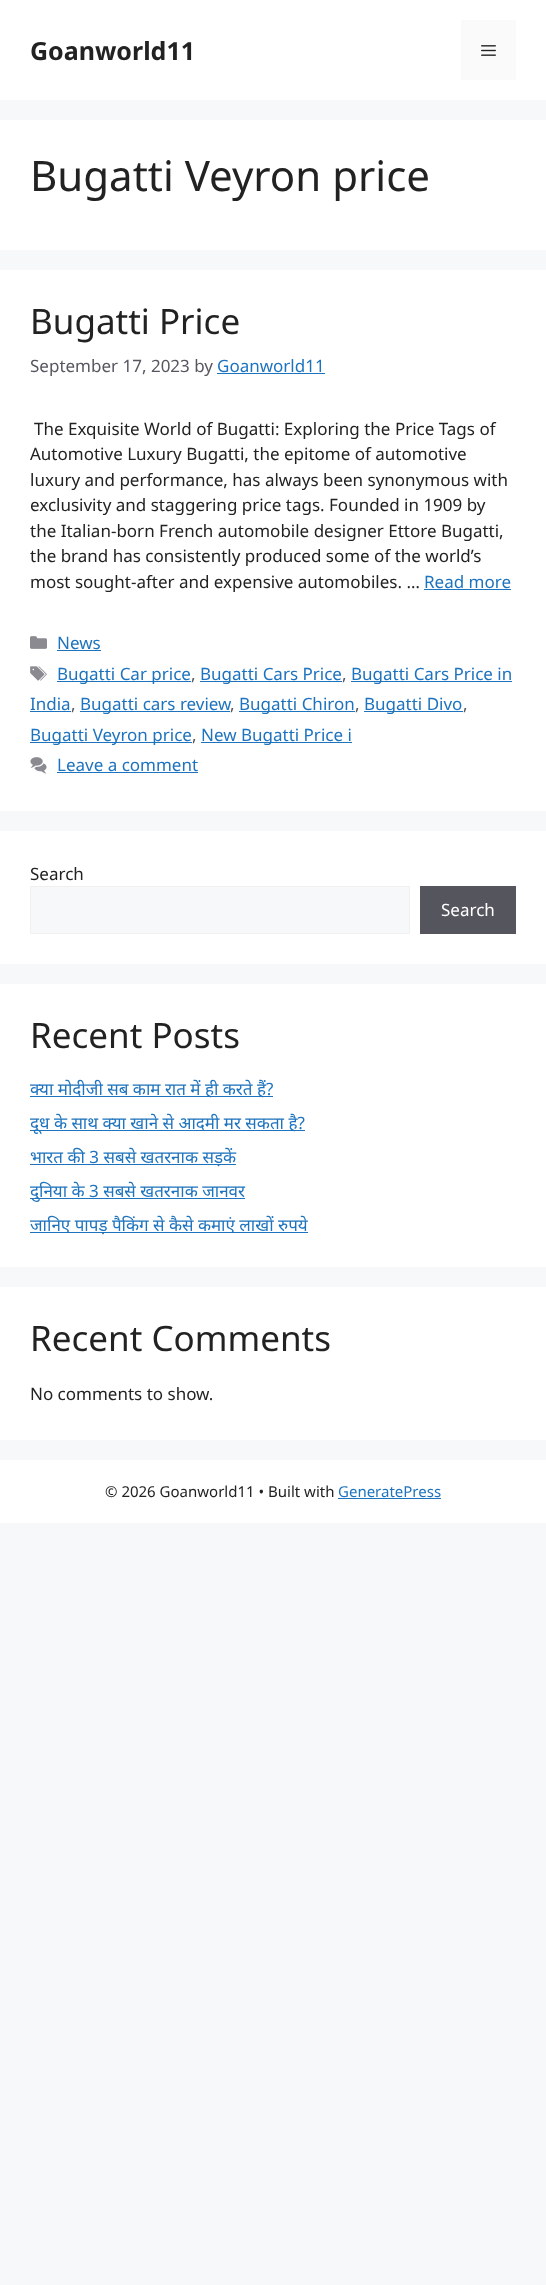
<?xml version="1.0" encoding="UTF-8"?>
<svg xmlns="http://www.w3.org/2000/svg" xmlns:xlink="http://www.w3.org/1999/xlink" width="546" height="2285">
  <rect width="100%" height="100%" fill="#f7f8f9" />
  <rect width="546" height="100" fill="#ffffff" />
  <rect x="461" y="20" width="55" height="60" fill="#fafafa" />
  <image x="481" y="45" width="15" height="11" xlink:href="image1.png" />
  <rect y="120" width="546" height="130" fill="#ffffff" />
  <rect y="270" width="546" height="541" fill="#ffffff" />
  <rect x="217" y="373" width="108" height="1" fill="#1e73be" />
  <rect x="424" y="589" width="87" height="1" fill="#1e73be" />
  <image x="30" y="636" width="17" height="13" xlink:href="image2.png" />
  <rect x="57" y="650" width="44" height="1" fill="#1e73be" />
  <image x="30" y="666" width="17" height="15" xlink:href="image3.png" />
  <rect x="57" y="681" width="134" height="1" fill="#1e73be" />
  <rect x="200" y="681" width="142" height="1" fill="#1e73be" />
  <rect x="351" y="681" width="161" height="1" fill="#1e73be" />
  <rect x="30" y="711" width="41" height="1" fill="#1e73be" />
  <rect x="80" y="711" width="150" height="1" fill="#1e73be" />
  <rect x="239" y="711" width="116" height="1" fill="#1e73be" />
  <rect x="364" y="711" width="99" height="1" fill="#1e73be" />
  <rect x="30" y="742" width="162" height="1" fill="#1e73be" />
  <rect x="201" y="742" width="151" height="1" fill="#1e73be" />
  <image x="30" y="757" width="17" height="17" xlink:href="image4.png" />
  <rect x="57" y="772" width="141" height="1" fill="#1e73be" />
  <rect y="831" width="546" height="133" fill="#ffffff" />
  <rect x="30.5" y="886.5" width="379" height="47" fill="#f7f8f9" stroke="#f0f0f0" />
  <rect x="420" y="886" width="96" height="48" fill="#55555e" />
  <rect y="984" width="546" height="283" fill="#ffffff" />
  <rect x="30" y="1096" width="243" height="1" fill="#1e73be" />
  <rect x="30" y="1130" width="275" height="1" fill="#1e73be" />
  <rect x="30" y="1164" width="206" height="1" fill="#1e73be" />
  <rect x="30" y="1198" width="215" height="1" fill="#1e73be" />
  <rect x="30" y="1232" width="278" height="1" fill="#1e73be" />
  <rect y="1287" width="546" height="153" fill="#ffffff" />
  <rect y="1460" width="546" height="63" fill="#ffffff" />
  <rect x="338" y="1498" width="103" height="1" fill="#1e73be" />
  <text x="30" y="60" style="font-family: Noto Sans; font-size: 25px; font-weight: bold; fill: #222222">Goanworld11</text>
  <text x="30" y="191" style="font-family: Noto Sans; font-size: 42px; fill: #222222">Bugatti Veyron price</text>
  <text x="30" y="334" style="font-family: Noto Sans; font-size: 35px; fill: #222222">Bugatti Price</text>
  <text x="30" y="372" style="font-family: Noto Sans; font-size: 17px; fill: #575760">September 17, 2023 by</text>
  <text x="217" y="372" style="font-family: Noto Sans; font-size: 17px; fill: #1e73be">Goanworld11</text>
  <text x="34" y="435" style="font-family: Noto Sans; font-size: 17px; fill: #222222">The Exquisite World of Bugatti: Exploring the Price Tags of</text>
  <text x="30" y="460" style="font-family: Noto Sans; font-size: 17px; fill: #222222">Automotive Luxury Bugatti, the epitome of automotive</text>
  <text x="30" y="486" style="font-family: Noto Sans; font-size: 17px; fill: #222222">luxury and performance, has always been synonymous with</text>
  <text x="30" y="511" style="font-family: Noto Sans; font-size: 17px; fill: #222222">exclusivity and staggering price tags. Founded in 1909 by</text>
  <text x="30" y="537" style="font-family: Noto Sans; font-size: 17px; fill: #222222">the Italian-born French automobile designer Ettore Bugatti,</text>
  <text x="30" y="562" style="font-family: Noto Sans; font-size: 17px; fill: #222222">the brand has consistently produced some of the world’s</text>
  <text x="30" y="588" style="font-family: Noto Sans; font-size: 17px; fill: #222222">most sought-after and expensive automobiles. …</text>
  <text x="424" y="588" style="font-family: Noto Sans; font-size: 17px; fill: #1e73be">Read more</text>
  <text x="57" y="649" style="font-family: Noto Sans; font-size: 17px; fill: #1e73be">News</text>
  <text x="57" y="680" style="font-family: Noto Sans; font-size: 17px; fill: #1e73be">Bugatti Car price</text>
  <text x="191" y="680" style="font-family: Noto Sans; font-size: 17px; fill: #575760">,</text>
  <text x="200" y="680" style="font-family: Noto Sans; font-size: 17px; fill: #1e73be">Bugatti Cars Price</text>
  <text x="342" y="680" style="font-family: Noto Sans; font-size: 17px; fill: #575760">,</text>
  <text x="351" y="680" style="font-family: Noto Sans; font-size: 17px; fill: #1e73be">Bugatti Cars Price in</text>
  <text x="30" y="710" style="font-family: Noto Sans; font-size: 17px; fill: #1e73be">India</text>
  <text x="71" y="710" style="font-family: Noto Sans; font-size: 17px; fill: #575760">,</text>
  <text x="80" y="710" style="font-family: Noto Sans; font-size: 17px; fill: #1e73be">Bugatti cars review</text>
  <text x="230" y="710" style="font-family: Noto Sans; font-size: 17px; fill: #575760">,</text>
  <text x="239" y="710" style="font-family: Noto Sans; font-size: 17px; fill: #1e73be">Bugatti Chiron</text>
  <text x="355" y="710" style="font-family: Noto Sans; font-size: 17px; fill: #575760">,</text>
  <text x="364" y="710" style="font-family: Noto Sans; font-size: 17px; fill: #1e73be">Bugatti Divo</text>
  <text x="463" y="710" style="font-family: Noto Sans; font-size: 17px; fill: #575760">,</text>
  <text x="30" y="741" style="font-family: Noto Sans; font-size: 17px; fill: #1e73be">Bugatti Veyron price</text>
  <text x="192" y="741" style="font-family: Noto Sans; font-size: 17px; fill: #575760">,</text>
  <text x="201" y="741" style="font-family: Noto Sans; font-size: 17px; fill: #1e73be">New Bugatti Price i</text>
  <text x="57" y="771" style="font-family: Noto Sans; font-size: 17px; fill: #1e73be">Leave a comment</text>
  <text x="30" y="880" style="font-family: Noto Sans; font-size: 17px; fill: #222222">Search</text>
  <text x="441" y="916" style="font-family: Noto Sans; font-size: 17px; fill: #ffffff">Search</text>
  <text x="30" y="1048" style="font-family: Noto Sans; font-size: 35px; fill: #222222">Recent Posts</text>
  <text x="30" y="1095" style="font-family: Noto Sans; font-size: 17px; fill: #1e73be">क्या मोदीजी सब काम रात में ही करते हैं?</text>
  <text x="30" y="1129" style="font-family: Noto Sans; font-size: 17px; fill: #1e73be">दूध के साथ क्या खाने से आदमी मर सकता है?</text>
  <text x="30" y="1163" style="font-family: Noto Sans; font-size: 17px; fill: #1e73be">भारत की 3 सबसे खतरनाक सड़कें</text>
  <text x="30" y="1197" style="font-family: Noto Sans; font-size: 17px; fill: #1e73be">दुनिया के 3 सबसे खतरनाक जानवर</text>
  <text x="30" y="1231" style="font-family: Noto Sans; font-size: 17px; fill: #1e73be">जानिए पापड़ पैकिंग से कैसे कमाएं लाखों रुपये</text>
  <text x="30" y="1351" style="font-family: Noto Sans; font-size: 35px; fill: #222222">Recent Comments</text>
  <text x="30" y="1400" style="font-family: Noto Sans; font-size: 17px; fill: #222222">No comments to show.</text>
  <text x="105" y="1497" style="font-family: Noto Sans; font-size: 15px; fill: #222222">© 2026 Goanworld11 • Built with</text>
  <text x="338" y="1497" style="font-family: Noto Sans; font-size: 15px; fill: #1e73be">GeneratePress</text>
</svg>
